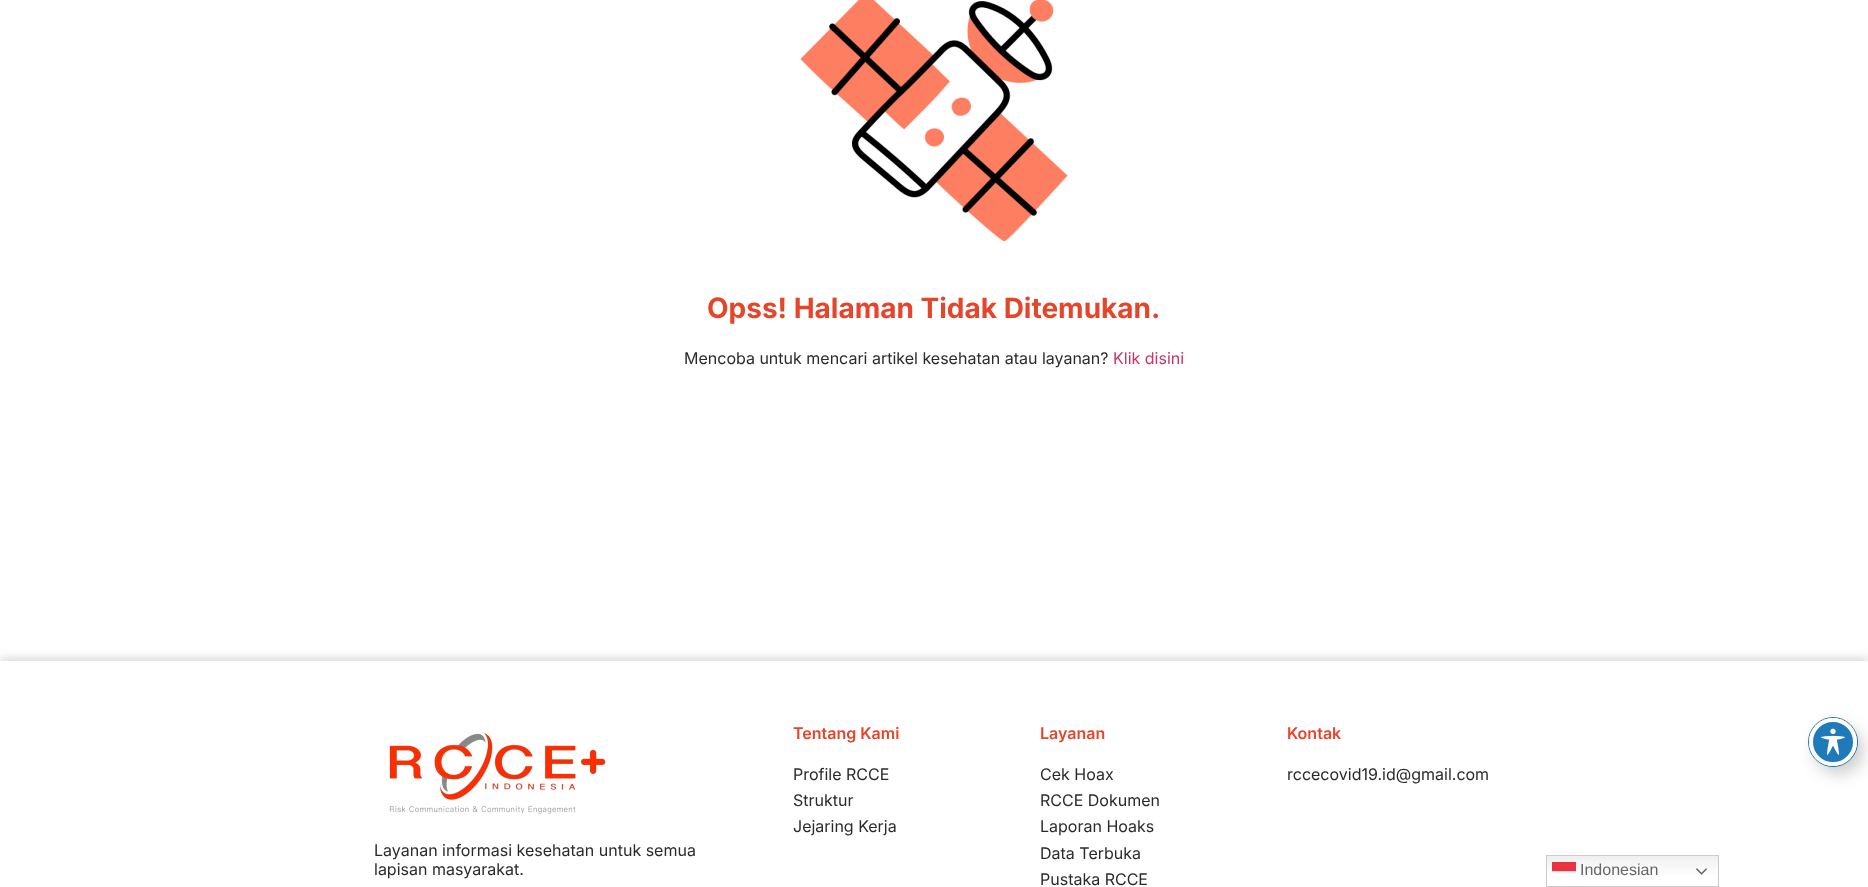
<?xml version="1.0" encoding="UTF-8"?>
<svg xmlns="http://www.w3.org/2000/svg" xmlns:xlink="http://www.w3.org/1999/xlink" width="1868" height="887">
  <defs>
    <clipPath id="clip1"><rect x="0" y="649" width="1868" height="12" /></clipPath>
    <linearGradient id="g1" gradientUnits="userSpaceOnUse" x1="1633" y1="855" x2="1633" y2="887"><stop offset="0" stop-color="#efefef" /><stop offset="0.7" stop-color="#ffffff" /></linearGradient>
    <linearGradient id="g2" gradientUnits="userSpaceOnUse" x1="1633" y1="855" x2="1633" y2="887"><stop offset="0" stop-color="#e9303d" /><stop offset="0.7" stop-color="#ec3341" /></linearGradient>
    <linearGradient id="g3" gradientUnits="userSpaceOnUse" x1="1633" y1="855" x2="1633" y2="887"><stop offset="0" stop-color="#fbd6d8" /><stop offset="0.7" stop-color="#fbd6d9" /></linearGradient>
  </defs>
  <rect width="100%" height="100%" fill="#ffffff" />
  <image x="800" y="0" width="268" height="242" xlink:href="image1.png" />
  <g clip-path="url(#clip1)">
    <rect y="658" width="1868" height="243" fill="#c5c5c5" fill-opacity="0.65" filter="blur(5px)" />
  </g>
  <image x="389" y="733" width="217" height="81" xlink:href="image2.png" />
  <rect x="1547" y="856" width="171" height="18" fill="url(#g1)" />
  <rect x="1552" y="862" width="24" height="9" fill="url(#g2)" />
  <rect x="1552" y="871" width="24" height="1" fill="url(#g3)" />
  <rect x="1546.5" y="855.5" width="172" height="31" fill="none" stroke="#cccccc" />
  <image x="1696" y="868" width="11" height="7" xlink:href="image3.png" />
  <circle cx="1833" cy="742" r="24.5" fill="none" stroke="#1e7ab9" />
  <rect x="1815" y="726" width="48" height="48" rx="24" fill="#000000" fill-opacity="0.2" filter="blur(8px)" />
  <circle cx="1833" cy="742" r="22" fill="#1e7ab9" stroke="#ffffff" stroke-width="4" />
  <image x="1821" y="728" width="24" height="27" xlink:href="image4.png" />
  <text x="707" y="318" style="font-family: Inter; font-size: 28px; font-weight: bold; fill: #e5462b">Opss! Halaman Tidak Ditemukan.</text>
  <text x="684" y="364" style="font-family: Inter; font-size: 16px; fill: #2a2a2a">Mencoba untuk mencari artikel kesehatan atau layanan?</text>
  <text x="1113" y="364" style="font-family: Inter; font-size: 16px; fill: #cc3366">Klik disini</text>
  <text x="793" y="739" style="font-family: Inter; font-size: 16px; font-weight: 600; fill: #e5462b">Tentang Kami</text>
  <text x="793" y="780" style="font-family: Inter; font-size: 16px; fill: #2a2a2a">Profile RCCE</text>
  <text x="793" y="806" style="font-family: Inter; font-size: 16px; fill: #2a2a2a">Struktur</text>
  <text x="793" y="832" style="font-family: Inter; font-size: 16px; fill: #2a2a2a">Jejaring Kerja</text>
  <text x="1040" y="739" style="font-family: Inter; font-size: 16px; font-weight: 600; fill: #e5462b">Layanan</text>
  <text x="1040" y="780" style="font-family: Inter; font-size: 16px; fill: #2a2a2a">Cek Hoax</text>
  <text x="1040" y="806" style="font-family: Inter; font-size: 16px; fill: #2a2a2a">RCCE Dokumen</text>
  <text x="1040" y="832" style="font-family: Inter; font-size: 16px; fill: #2a2a2a">Laporan Hoaks</text>
  <text x="1040" y="859" style="font-family: Inter; font-size: 16px; fill: #2a2a2a">Data Terbuka</text>
  <text x="1040" y="885" style="font-family: Inter; font-size: 16px; fill: #2a2a2a">Pustaka RCCE</text>
  <text x="1287" y="739" style="font-family: Inter; font-size: 16px; font-weight: 600; fill: #e5462b">Kontak</text>
  <text x="1287" y="780" style="font-family: Inter; font-size: 16px; fill: #2a2a2a">rccecovid19.id@gmail.com</text>
  <text x="374" y="856" style="font-family: Inter; font-size: 16px; fill: #2a2a2a">Layanan informasi kesehatan untuk semua</text>
  <text x="374" y="875" style="font-family: Inter; font-size: 16px; fill: #2a2a2a">lapisan masyarakat.</text>
  <text x="1580" y="875" style="font-family: Liberation Sans; font-size: 16px; fill: #666666">Indonesian</text>
</svg>
